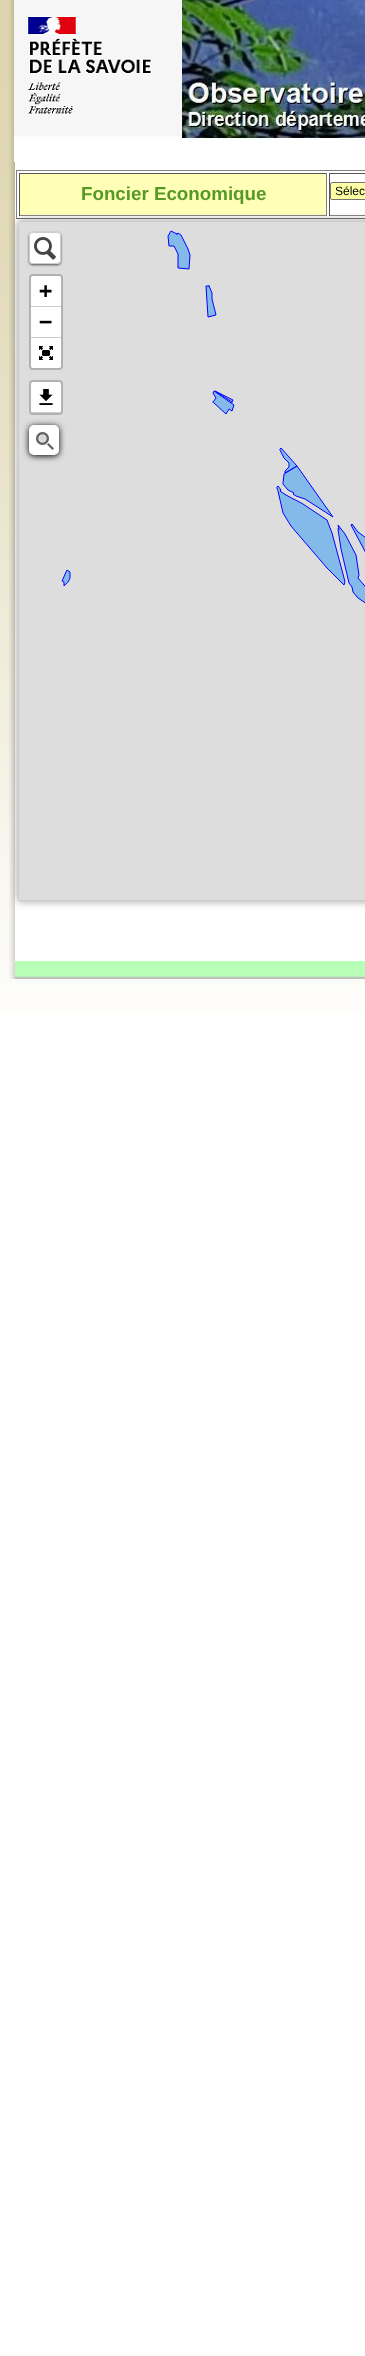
<?xml version="1.0" encoding="UTF-8"?>
<svg xmlns="http://www.w3.org/2000/svg" xmlns:xlink="http://www.w3.org/1999/xlink" width="365" height="2356">
  <rect width="100%" height="100%" fill="#ffffff" />
  <image x="0" y="0" width="365" height="1014" xlink:href="image1.png" />
  <image x="9" y="0" width="356" height="979" xlink:href="image2.png" />
  <image x="182" y="0" width="183" height="140" xlink:href="image3.png" />
  <image x="14" y="0" width="168" height="162" xlink:href="image4.png" />
  <rect x="16" y="170" width="349" height="1" fill="#808080" />
  <rect x="16" y="218" width="349" height="1" fill="#555555" />
  <rect x="16" y="170" width="1" height="49" fill="#808080" />
  <rect x="20" y="174" width="306" height="41" fill="#ffffb7" />
  <rect x="19" y="173" width="308" height="1" fill="#555555" />
  <rect x="326" y="173" width="1" height="43" fill="#808080" />
  <rect x="19" y="215" width="308" height="1" fill="#808080" />
  <rect x="19" y="173" width="1" height="43" fill="#555555" />
  <rect x="329" y="173" width="36" height="1" fill="#555555" />
  <rect x="329" y="215" width="36" height="1" fill="#808080" />
  <rect x="329" y="173" width="1" height="43" fill="#555555" />
  <rect x="330.5" y="182.5" width="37" height="17" rx="1.5" fill="#ffffa5" stroke="#767676" />
  <rect x="18" y="221" width="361" height="680" rx="1.5" fill="#999999" filter="blur(4px)" />
  <rect x="18.5" y="221.5" width="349" height="679" rx="1" fill="#dddddd" stroke="#cccccc" />
  <image x="61" y="230" width="304" height="373" xlink:href="image9.png" />
  <rect x="29" y="233" width="32" height="32" rx="4" fill="#000000" fill-opacity="0.65" filter="blur(1px)" />
  <rect x="29" y="232" width="32" height="32" rx="4" fill="#ffffff" />
  <image x="34" y="237" width="22" height="23" xlink:href="image5.png" />
  <rect x="29.5" y="232.5" width="31" height="31" rx="3.5" fill="none" stroke="#cccccc" />
  <rect x="30" y="275" width="32" height="94" rx="3" fill="none" stroke="#b1b1b1" stroke-width="2" />
  <path d="M 33 276 h 26 c 1 0 2 1 2 2 v 29 h -30 v -29 c 0 -1 1 -2 2 -2 z" fill="#ffffff" />
  <rect x="31" y="306" width="30" height="1" fill="#cccccc" />
  <rect x="31" y="307" width="30" height="30" fill="#ffffff" />
  <rect x="31" y="337" width="30" height="1" fill="#cccccc" />
  <path d="M 31 338 h 30 v 28 c 0 1 -1 2 -2 2 h -26 c -1 0 -2 -1 -2 -2 z" fill="#ffffff" />
  <image x="39" y="346" width="14" height="14" xlink:href="image6.png" />
  <rect x="30" y="381" width="32" height="33" rx="3" fill="none" stroke="#b1b1b1" stroke-width="2" />
  <path d="M 33 382 h 26 c 1 0 2 1 2 2 v 29 h -30 v -29 c 0 -1 1 -2 2 -2 z" fill="#ffffff" />
  <image x="39" y="389" width="14" height="16" xlink:href="image7.png" />
  <rect x="31" y="412" width="30" height="1" fill="#cccccc" />
  <rect x="29" y="426" width="30" height="30" rx="5" fill="#000000" filter="blur(3px)" />
  <rect x="29" y="425" width="30" height="30" rx="5" fill="#ffffff" />
  <image x="36" y="432" width="18" height="18" xlink:href="image8.png" />
  <image x="15" y="961" width="350" height="18" xlink:href="image10.png" />
  <text x="81" y="200" style="font-family: Liberation Sans; font-size: 18.75px; font-weight: bold; fill: #569926">Foncier Economique</text>
  <text x="335" y="195" style="font-family: Liberation Sans; font-size: 12px; fill: #000000">Sélec</text>
  <text x="39" y="298" style="font-family: DejaVu Sans Mono; font-size: 22px; font-weight: bold; fill: #000000">+</text>
  <text x="39" y="329" style="font-family: DejaVu Sans Mono; font-size: 22px; font-weight: bold; fill: #000000">−</text>
</svg>
